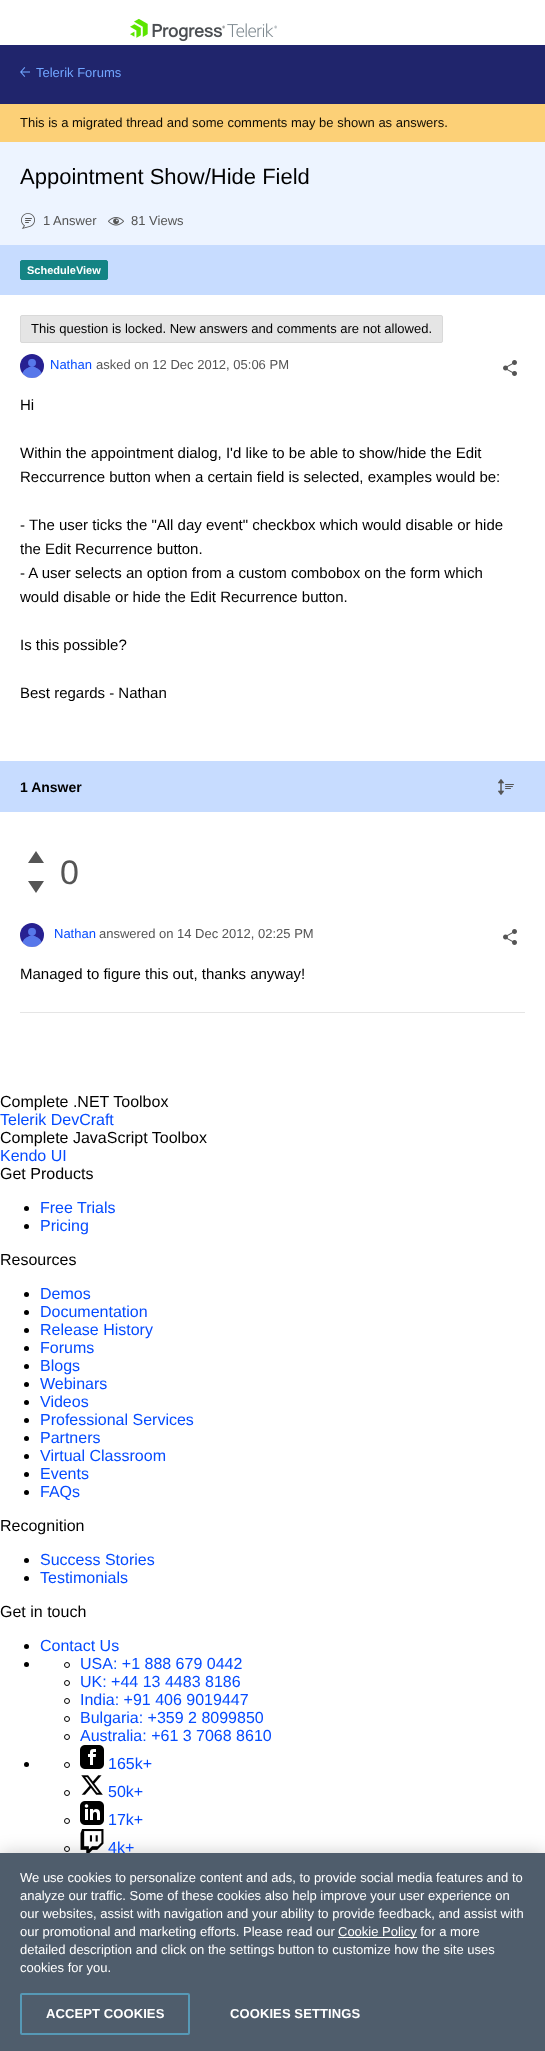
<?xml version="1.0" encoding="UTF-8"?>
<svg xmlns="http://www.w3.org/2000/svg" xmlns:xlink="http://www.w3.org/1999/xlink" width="545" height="2051">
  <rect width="100%" height="100%" fill="#ffffff" />
  <image x="130" y="18" width="147" height="24" xlink:href="image1.png" />
  <rect y="45" width="545" height="59" fill="#20256c" />
  <image x="20" y="67" width="10" height="10" xlink:href="image2.png" />
  <rect y="104" width="545" height="38" fill="#fcd077" />
  <rect y="142" width="545" height="103" fill="#edf4ff" />
  <image x="21" y="213" width="14" height="16" xlink:href="image3.png" />
  <image x="108" y="217" width="16" height="9" xlink:href="image4.png" />
  <rect y="245" width="545" height="50" fill="#c7dcff" />
  <rect x="20.5" y="260.5" width="87" height="19" rx="1.5" fill="#148484" stroke="#148484" />
  <rect x="20.5" y="315.5" width="422" height="27" rx="1.5" fill="#e5e5e5" stroke="#d9d9d9" />
  <image x="20" y="354" width="24" height="24" xlink:href="image5.png" />
  <image x="503" y="360" width="14" height="16" xlink:href="image6.png" />
  <rect y="761" width="545" height="51" fill="#c7dcff" />
  <image x="498" y="779" width="16" height="16" xlink:href="image7.png" />
  <rect x="20" y="1012" width="505" height="1" fill="#e5e5e5" />
  <path d="M 44 863 h -16 l 8 -12 z m -16 18 h 16 l -8 12 z" fill="#555555" />
  <image x="20" y="923" width="24" height="24" xlink:href="image5.png" />
  <image x="503" y="929" width="14" height="16" xlink:href="image6.png" />
  <circle cx="26.5" cy="1208.5" r="2.5" fill="#000000" />
  <circle cx="26.5" cy="1226.5" r="2.5" fill="#000000" />
  <circle cx="26.5" cy="1294.5" r="2.5" fill="#000000" />
  <circle cx="26.5" cy="1312.5" r="2.5" fill="#000000" />
  <circle cx="26.5" cy="1330.5" r="2.5" fill="#000000" />
  <circle cx="26.5" cy="1348.5" r="2.5" fill="#000000" />
  <circle cx="26.5" cy="1366.5" r="2.5" fill="#000000" />
  <circle cx="26.5" cy="1384.5" r="2.5" fill="#000000" />
  <circle cx="26.5" cy="1402.5" r="2.5" fill="#000000" />
  <circle cx="26.5" cy="1420.5" r="2.5" fill="#000000" />
  <circle cx="26.5" cy="1438.5" r="2.5" fill="#000000" />
  <circle cx="26.5" cy="1456.5" r="2.5" fill="#000000" />
  <circle cx="26.5" cy="1474.5" r="2.5" fill="#000000" />
  <circle cx="26.5" cy="1492.5" r="2.5" fill="#000000" />
  <circle cx="26.5" cy="1560.5" r="2.5" fill="#000000" />
  <circle cx="26.5" cy="1578.5" r="2.5" fill="#000000" />
  <circle cx="26.5" cy="1646.5" r="2.5" fill="#000000" />
  <circle cx="26.5" cy="1664.5" r="2.5" fill="#000000" />
  <circle cx="67" cy="1665" r="2.5" fill="none" stroke="#000000" />
  <circle cx="67" cy="1683" r="2.5" fill="none" stroke="#000000" />
  <circle cx="67" cy="1701" r="2.5" fill="none" stroke="#000000" />
  <circle cx="67" cy="1719" r="2.5" fill="none" stroke="#000000" />
  <circle cx="67" cy="1737" r="2.5" fill="none" stroke="#000000" />
  <circle cx="26.5" cy="1764.5" r="2.5" fill="#000000" />
  <circle cx="67" cy="1765" r="2.5" fill="none" stroke="#000000" />
  <image x="80" y="1745" width="24" height="24" xlink:href="image8.png" />
  <circle cx="67" cy="1793" r="2.5" fill="none" stroke="#000000" />
  <image x="81" y="1775" width="22" height="20" xlink:href="image9.png" />
  <circle cx="67" cy="1821" r="2.5" fill="none" stroke="#000000" />
  <image x="80" y="1801" width="24" height="24" xlink:href="image10.png" />
  <circle cx="67" cy="1849" r="2.5" fill="none" stroke="#000000" />
  <image x="80" y="1829" width="24" height="24" xlink:href="image11.png" />
  <rect y="1853" width="545" height="198" fill="#000000" fill-opacity="0.2" filter="blur(9px)" />
  <rect y="1853" width="545" height="198" fill="#4f5d6c" />
  <rect x="338" y="1937" width="79" height="1" fill="#ffffff" />
  <rect x="21" y="1994" width="168" height="40" rx="1" fill="none" stroke="#5699b6" stroke-width="2" />
  <text x="36" y="77" style="font-family: Liberation Sans; font-size: 13px; fill: #71a6ff">Telerik Forums</text>
  <text x="20" y="127" style="font-family: Liberation Sans; font-size: 13px; fill: #100c02">This is a migrated thread and some comments may be shown as answers.</text>
  <text x="20" y="184" style="font-family: Liberation Sans; font-size: 22px; fill: #000000">Appointment Show/Hide Field</text>
  <text x="43" y="225" style="font-family: Liberation Sans; font-size: 13px; fill: #555555">1 Answer</text>
  <text x="131" y="225" style="font-family: Liberation Sans; font-size: 13px; fill: #555555">81 Views</text>
  <text x="27" y="274" style="font-family: Liberation Sans; font-size: 11px; font-weight: bold; fill: #ffffff">ScheduleView</text>
  <text x="31" y="333" style="font-family: Liberation Sans; font-size: 13px; fill: #000000">This question is locked. New answers and comments are not allowed.</text>
  <text x="50" y="369" style="font-family: Liberation Sans; font-size: 13px; fill: #054bff">Nathan</text>
  <text x="96" y="369" style="font-family: Liberation Sans; font-size: 13px; fill: #555555">asked on 12 Dec 2012, 05:06 PM</text>
  <text x="20" y="410" style="font-family: Liberation Sans; font-size: 15px; fill: #000000">Hi</text>
  <text x="20" y="458" style="font-family: Liberation Sans; font-size: 15px; fill: #000000">Within the appointment dialog, I'd like to be able to show/hide the Edit</text>
  <text x="20" y="482" style="font-family: Liberation Sans; font-size: 15px; fill: #000000">Reccurrence button when a certain field is selected, examples would be:</text>
  <text x="20" y="530" style="font-family: Liberation Sans; font-size: 15px; fill: #000000">- The user ticks the "All day event" checkbox which would disable or hide</text>
  <text x="20" y="554" style="font-family: Liberation Sans; font-size: 15px; fill: #000000">the Edit Recurrence button.</text>
  <text x="20" y="578" style="font-family: Liberation Sans; font-size: 15px; fill: #000000">- A user selects an option from a custom combobox on the form which</text>
  <text x="20" y="602" style="font-family: Liberation Sans; font-size: 15px; fill: #000000">would disable or hide the Edit Recurrence button.</text>
  <text x="20" y="650" style="font-family: Liberation Sans; font-size: 15px; fill: #000000">Is this possible?</text>
  <text x="20" y="698" style="font-family: Liberation Sans; font-size: 15px; fill: #000000">Best regards - Nathan</text>
  <text x="20" y="792" style="font-family: Liberation Sans; font-size: 14px; font-weight: bold; fill: #000000">1 Answer</text>
  <text x="60" y="884" style="font-family: Liberation Sans; font-size: 34px; fill: #555555">0</text>
  <text x="54" y="938" style="font-family: Liberation Sans; font-size: 13px; fill: #054bff">Nathan</text>
  <text x="99" y="938" style="font-family: Liberation Sans; font-size: 13px; fill: #555555">answered on 14 Dec 2012, 02:25 PM</text>
  <text x="20" y="979" style="font-family: Liberation Sans; font-size: 15px; fill: #000000">Managed to figure this out, thanks anyway!</text>
  <text x="0" y="1107" style="font-family: Liberation Sans; font-size: 16px; fill: #000000">Complete .NET Toolbox</text>
  <text x="0" y="1125" style="font-family: Liberation Sans; font-size: 16px; fill: #054bff">Telerik DevCraft</text>
  <text x="0" y="1143" style="font-family: Liberation Sans; font-size: 16px; fill: #000000">Complete JavaScript Toolbox</text>
  <text x="0" y="1161" style="font-family: Liberation Sans; font-size: 16px; fill: #054bff">Kendo UI</text>
  <text x="0" y="1179" style="font-family: Liberation Sans; font-size: 16px; fill: #000000">Get Products</text>
  <text x="40" y="1213" style="font-family: Liberation Sans; font-size: 16px; fill: #054bff">Free Trials</text>
  <text x="40" y="1231" style="font-family: Liberation Sans; font-size: 16px; fill: #054bff">Pricing</text>
  <text x="0" y="1265" style="font-family: Liberation Sans; font-size: 16px; fill: #000000">Resources</text>
  <text x="40" y="1299" style="font-family: Liberation Sans; font-size: 16px; fill: #054bff">Demos</text>
  <text x="40" y="1317" style="font-family: Liberation Sans; font-size: 16px; fill: #054bff">Documentation</text>
  <text x="40" y="1335" style="font-family: Liberation Sans; font-size: 16px; fill: #054bff">Release History</text>
  <text x="40" y="1353" style="font-family: Liberation Sans; font-size: 16px; fill: #054bff">Forums</text>
  <text x="40" y="1371" style="font-family: Liberation Sans; font-size: 16px; fill: #054bff">Blogs</text>
  <text x="40" y="1389" style="font-family: Liberation Sans; font-size: 16px; fill: #054bff">Webinars</text>
  <text x="40" y="1407" style="font-family: Liberation Sans; font-size: 16px; fill: #054bff">Videos</text>
  <text x="40" y="1425" style="font-family: Liberation Sans; font-size: 16px; fill: #054bff">Professional Services</text>
  <text x="40" y="1443" style="font-family: Liberation Sans; font-size: 16px; fill: #054bff">Partners</text>
  <text x="40" y="1461" style="font-family: Liberation Sans; font-size: 16px; fill: #054bff">Virtual Classroom</text>
  <text x="40" y="1479" style="font-family: Liberation Sans; font-size: 16px; fill: #054bff">Events</text>
  <text x="40" y="1497" style="font-family: Liberation Sans; font-size: 16px; fill: #054bff">FAQs</text>
  <text x="0" y="1531" style="font-family: Liberation Sans; font-size: 16px; fill: #000000">Recognition</text>
  <text x="40" y="1565" style="font-family: Liberation Sans; font-size: 16px; fill: #054bff">Success Stories</text>
  <text x="40" y="1583" style="font-family: Liberation Sans; font-size: 16px; fill: #054bff">Testimonials</text>
  <text x="0" y="1617" style="font-family: Liberation Sans; font-size: 16px; fill: #000000">Get in touch</text>
  <text x="40" y="1651" style="font-family: Liberation Sans; font-size: 16px; fill: #054bff">Contact Us</text>
  <text x="80" y="1669" style="font-family: Liberation Sans; font-size: 16px; fill: #054bff">USA: +1 888 679 0442</text>
  <text x="80" y="1687" style="font-family: Liberation Sans; font-size: 16px; fill: #054bff">UK: +44 13 4483 8186</text>
  <text x="80" y="1705" style="font-family: Liberation Sans; font-size: 16px; fill: #054bff">India: +91 406 9019447</text>
  <text x="80" y="1723" style="font-family: Liberation Sans; font-size: 16px; fill: #054bff">Bulgaria: +359 2 8099850</text>
  <text x="80" y="1741" style="font-family: Liberation Sans; font-size: 16px; fill: #054bff">Australia: +61 3 7068 8610</text>
  <text x="108" y="1769" style="font-family: Liberation Sans; font-size: 16px; fill: #054bff">165k+</text>
  <text x="108" y="1797" style="font-family: Liberation Sans; font-size: 16px; fill: #054bff">50k+</text>
  <text x="108" y="1825" style="font-family: Liberation Sans; font-size: 16px; fill: #054bff">17k+</text>
  <text x="108" y="1853" style="font-family: Liberation Sans; font-size: 16px; fill: #054bff">4k+</text>
  <text x="20" y="1882" style="font-family: Liberation Sans; font-size: 13px; fill: #ffffff">We use cookies to personalize content and ads, to provide social media features and to</text>
  <text x="20" y="1900" style="font-family: Liberation Sans; font-size: 13px; fill: #ffffff">analyze our traffic. Some of these cookies also help improve your user experience on</text>
  <text x="20" y="1918" style="font-family: Liberation Sans; font-size: 13px; fill: #ffffff">our websites, assist with navigation and your ability to provide feedback, and assist with</text>
  <text x="20" y="1936" style="font-family: Liberation Sans; font-size: 13px; fill: #ffffff">our promotional and marketing efforts. Please read our</text>
  <text x="338" y="1936" style="font-family: Liberation Sans; font-size: 13px; fill: #ffffff">Cookie Policy for a more</text>
  <text x="20" y="1954" style="font-family: Liberation Sans; font-size: 13px; fill: #ffffff">detailed description and click on the settings button to customize how the site uses</text>
  <text x="20" y="1972" style="font-family: Liberation Sans; font-size: 13px; fill: #ffffff">cookies for you.</text>
  <text x="46" y="2018" style="font-family: Liberation Sans; font-size: 13px; font-weight: bold; letter-spacing: 0.1px; fill: #ffffff">ACCEPT COOKIES</text>
  <text x="230" y="2018" style="font-family: Liberation Sans; font-size: 13px; font-weight: bold; letter-spacing: 0.1px; fill: #ffffff">COOKIES SETTINGS</text>
</svg>
